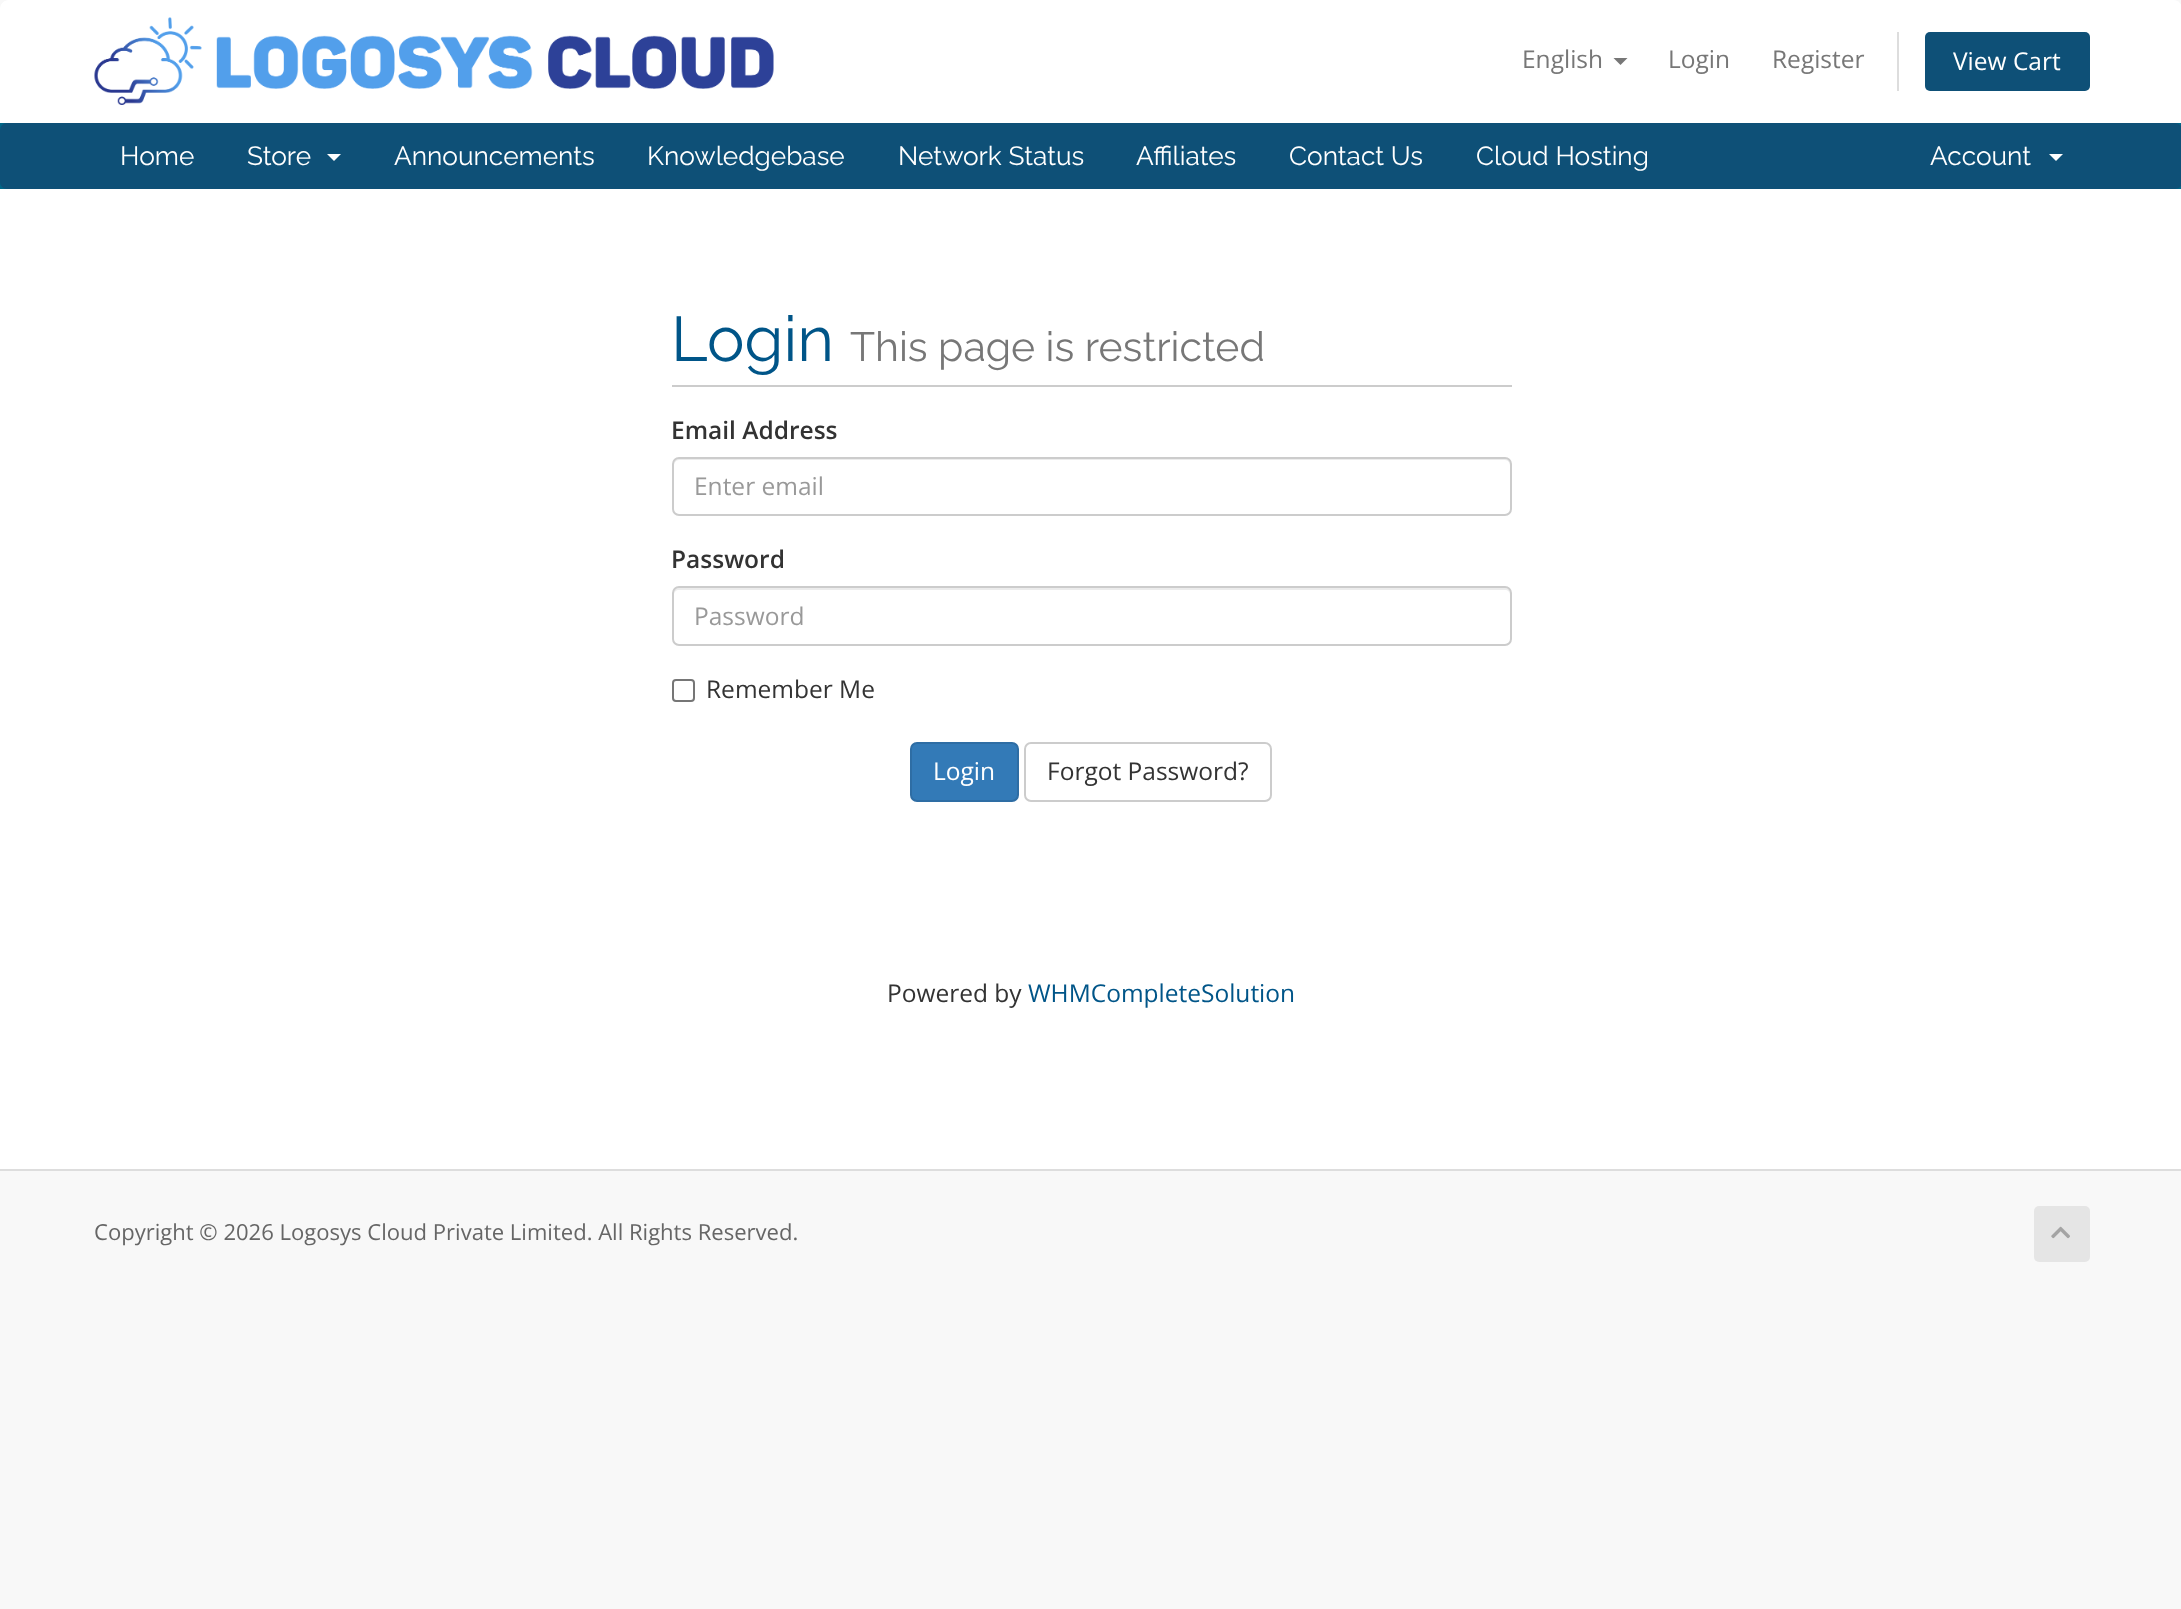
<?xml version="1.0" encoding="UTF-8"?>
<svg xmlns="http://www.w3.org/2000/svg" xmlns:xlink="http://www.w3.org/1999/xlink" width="2181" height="1609">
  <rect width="100%" height="100%" fill="#f8f8f8" />
  <path d="M 9 0 h 2164 c 5 0 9 4 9 9 v 114 h -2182 v -114 c 0 -5 4 -9 9 -9 z" fill="#ffffff" />
  <image x="94" y="17" width="680" height="88" xlink:href="image1.png" />
  <path d="M 1613.5 58 h 14 l -7 7 z" fill="#777777" />
  <rect x="1897" y="32" width="2" height="59" fill="#dddddd" />
  <rect x="1925" y="32" width="165" height="59" rx="5" fill="#0e5077" />
  <rect y="123" width="2181" height="66" fill="#006687" />
  <rect y="123" width="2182" height="66" rx="7" fill="#0e5077" />
  <path d="M 327 154 h 14 l -7 7 z" fill="#ffffff" />
  <path d="M 2049 154 h 14 l -7 7 z" fill="#ffffff" />
  <rect y="189" width="2181" height="980" fill="#ffffff" />
  <rect x="672" y="385" width="840" height="2" fill="#cccccc" />
  <path d="M 679 460 h 826 c 3 0 5 3 5 6 v -2 c 0 -3 -2 -5 -5 -5 h -826 c -3 0 -5 2 -5 5 v 2 c 0 -3 2 -6 5 -6 z" fill="#ececec" />
  <rect x="673" y="458" width="838" height="57" rx="6" fill="none" stroke="#cccccc" stroke-width="2" />
  <path d="M 679 590 h 826 c 3 0 5 2 5 5 v -2 c 0 -3 -2 -5 -5 -5 h -826 c -3 0 -5 2 -5 5 v 2 c 0 -3 2 -5 5 -5 z" fill="#ececec" />
  <rect x="673" y="587" width="838" height="58" rx="6" fill="none" stroke="#cccccc" stroke-width="2" />
  <rect x="673" y="680" width="21" height="21" rx="3" fill="none" stroke="#767676" stroke-width="2" />
  <rect x="911" y="743" width="107" height="58" rx="6" fill="#337ab7" stroke="#2e6da4" stroke-width="2" />
  <rect x="1025" y="743" width="246" height="58" rx="6" fill="none" stroke="#cccccc" stroke-width="2" />
  <rect y="1169" width="2181" height="2" fill="#dddddd" />
  <rect x="2034" y="1206" width="56" height="56" rx="5" fill="#e5e5e5" />
  <image x="2051" y="1226" width="19" height="13" xlink:href="image2.png" />
  <text x="1522" y="68" style="font-family: Open Sans; font-size: 24.5px; fill: #777777">English</text>
  <text x="1668" y="68" style="font-family: Open Sans; font-size: 24.5px; fill: #777777">Login</text>
  <text x="1772" y="68" style="font-family: Open Sans; font-size: 24.5px; fill: #777777">Register</text>
  <text x="1953" y="70" style="font-family: Open Sans; font-size: 24.5px; fill: #ffffff">View Cart</text>
  <text x="120" y="165" style="font-family: Raleway; font-size: 26.25px; fill: #ffffff">Home</text>
  <text x="247" y="165" style="font-family: Raleway; font-size: 26.25px; fill: #ffffff">Store</text>
  <text x="394" y="165" style="font-family: Raleway; font-size: 26.25px; fill: #ffffff">Announcements</text>
  <text x="647" y="165" style="font-family: Raleway; font-size: 26.25px; fill: #ffffff">Knowledgebase</text>
  <text x="898" y="165" style="font-family: Raleway; font-size: 26.25px; fill: #ffffff">Network Status</text>
  <text x="1136" y="165" style="font-family: Raleway; font-size: 26.25px; fill: #ffffff">Affiliates</text>
  <text x="1289" y="165" style="font-family: Raleway; font-size: 26.25px; fill: #ffffff">Contact Us</text>
  <text x="1476" y="165" style="font-family: Raleway; font-size: 26.25px; fill: #ffffff">Cloud Hosting</text>
  <text x="1930" y="165" style="font-family: Raleway; font-size: 26.25px; fill: #ffffff">Account</text>
  <text x="671" y="361" style="font-family: Raleway; font-size: 63px; fill: #005588">Login</text>
  <text x="850" y="361" style="font-family: Raleway; font-size: 41px; fill: #777777">This page is restricted</text>
  <text x="671" y="439" style="font-family: Open Sans; font-size: 24.5px; font-weight: 600; fill: #333333">Email Address</text>
  <text x="694" y="495" style="font-family: Open Sans; font-size: 24.5px; fill: #999999">Enter email</text>
  <text x="671" y="568" style="font-family: Open Sans; font-size: 24.5px; font-weight: 600; fill: #333333">Password</text>
  <text x="694" y="625" style="font-family: Open Sans; font-size: 24.5px; fill: #999999">Password</text>
  <text x="706" y="698" style="font-family: Open Sans; font-size: 24.5px; fill: #333333">Remember Me</text>
  <text x="933" y="780" style="font-family: Open Sans; font-size: 24.5px; fill: #ffffff">Login</text>
  <text x="1047" y="780" style="font-family: Open Sans; font-size: 24.5px; fill: #333333">Forgot Password?</text>
  <text x="887" y="1002" style="font-family: Open Sans; font-size: 24.5px; fill: #333333">Powered by</text>
  <text x="1028" y="1002" style="font-family: Open Sans; font-size: 24.5px; fill: #005588">WHMCompleteSolution</text>
  <text x="94" y="1240" style="font-family: Open Sans; font-size: 22.05px; fill: #666666">Copyright © 2026 Logosys Cloud Private Limited. All Rights Reserved.</text>
</svg>
